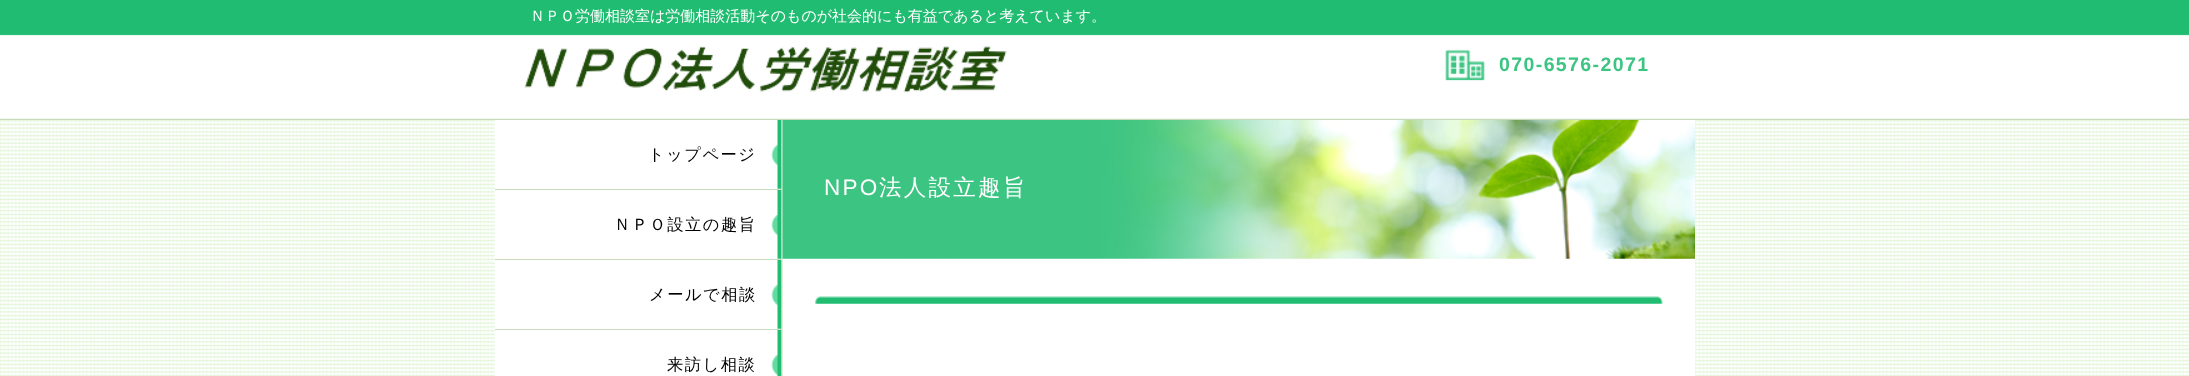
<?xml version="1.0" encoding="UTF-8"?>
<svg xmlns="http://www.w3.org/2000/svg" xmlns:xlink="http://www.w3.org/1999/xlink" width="2189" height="376">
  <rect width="100%" height="100%" fill="#ffffff" />
  <image x="0" y="120" width="2189" height="256" xlink:href="image1.png" />
  <image x="0" y="0" width="2189" height="120" xlink:href="image2.png" />
  <image x="524" y="46" width="483" height="47" xlink:href="image3.png" />
  <image x="1445" y="49" width="41" height="32" xlink:href="image4.png" />
  <rect x="495" y="120" width="1200" height="256" fill="#ffffff" />
  <image x="781" y="120" width="2" height="256" xlink:href="image5.png" />
  <image x="771" y="120" width="11" height="69" xlink:href="image6.png" />
  <rect x="495" y="189" width="286" height="1" fill="#c8dcbd" />
  <image x="771" y="190" width="11" height="69" xlink:href="image6.png" />
  <rect x="495" y="259" width="286" height="1" fill="#c8dcbd" />
  <image x="771" y="260" width="11" height="69" xlink:href="image6.png" />
  <rect x="495" y="329" width="286" height="1" fill="#c8dcbd" />
  <image x="771" y="330" width="11" height="46" xlink:href="image7.png" />
  <image x="782" y="120" width="913" height="139" xlink:href="image8.png" />
  <image x="815" y="296" width="848" height="8" xlink:href="image9.png" />
  <text x="530" y="21" style="font-family: WenQuanYi Zen Hei; font-size: 15px; font-weight: 500; fill: #ffffff">ＮＰＯ労働相談室は労働相談活動そのものが社会的にも有益であると考えています。</text>
  <text x="1499" y="71" style="font-family: Liberation Sans; font-size: 19.5px; font-weight: bold; letter-spacing: 1.4px; fill: #3cc482">070-6576-2071</text>
  <text x="648" y="160" style="font-family: WenQuanYi Zen Hei; font-size: 16.25px; font-weight: 500; letter-spacing: 1.5px; fill: #000000">トップページ</text>
  <text x="614" y="230" style="font-family: WenQuanYi Zen Hei; font-size: 16.25px; font-weight: 500; letter-spacing: 1.5px; fill: #000000">ＮＰＯ設立の趣旨</text>
  <text x="649" y="300" style="font-family: WenQuanYi Zen Hei; font-size: 16.25px; font-weight: 500; letter-spacing: 1.5px; fill: #000000">メールで相談</text>
  <text x="667" y="370" style="font-family: WenQuanYi Zen Hei; font-size: 16.25px; font-weight: 500; letter-spacing: 1.5px; fill: #000000">来訪し相談</text>
  <text x="824" y="195" style="font-family: Liberation Sans; font-size: 22.5px; letter-spacing: 2.25px; fill: #ffffff">NPO</text>
  <text x="879" y="195" style="font-family: WenQuanYi Zen Hei; font-size: 22.5px; font-weight: 500; letter-spacing: 2.25px; fill: #ffffff">法人設立趣旨</text>
</svg>
